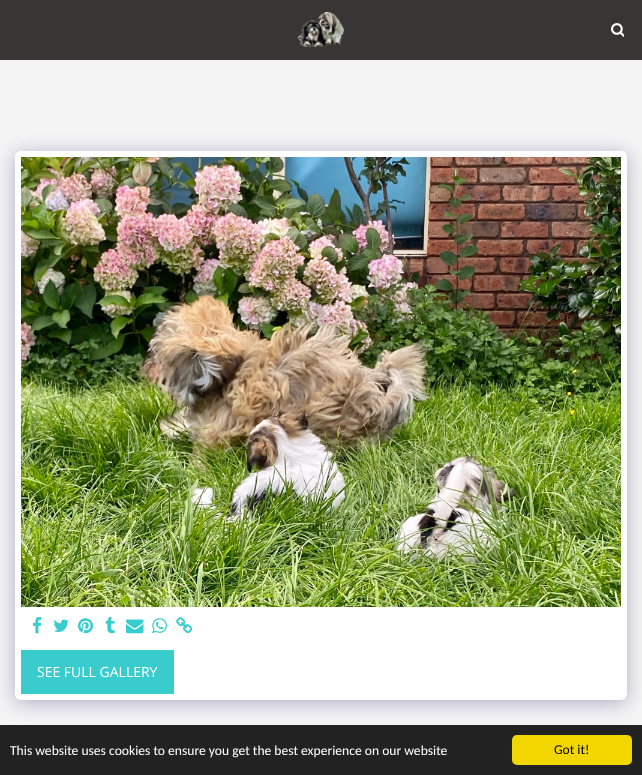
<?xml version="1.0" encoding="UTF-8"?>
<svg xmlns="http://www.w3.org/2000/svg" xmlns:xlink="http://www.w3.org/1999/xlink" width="642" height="775">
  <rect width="100%" height="100%" fill="#f4f4f4" />
  <rect width="642" height="60" fill="#3a3535" />
  <image x="298" y="12" width="47" height="35" xlink:href="image1.png" />
  <image x="611" y="23" width="13" height="14" xlink:href="image2.png" />
  <rect x="15" y="154" width="612" height="549" rx="6" fill="#4d3f7a" fill-opacity="0.4" filter="blur(10px)" />
  <rect x="15" y="151" width="612" height="549" rx="6" fill="#ffffff" />
  <image x="21" y="157" width="600" height="450" xlink:href="image3.png" />
  <image x="32" y="617" width="10" height="17" xlink:href="image4.png" />
  <image x="53" y="619" width="16" height="13" xlink:href="image5.png" />
  <image x="78" y="618" width="15" height="16" xlink:href="image6.png" />
  <image x="105" y="617" width="10" height="17" xlink:href="image7.png" />
  <image x="126" y="619" width="18" height="15" xlink:href="image8.png" />
  <image x="152" y="618" width="15" height="16" xlink:href="image9.png" />
  <image x="176" y="617" width="16" height="17" xlink:href="image10.png" />
  <rect x="21" y="650" width="153" height="44" fill="#39cccc" />
  <rect y="725" width="642" height="50" fill="#222222" />
  <rect x="512" y="735" width="120" height="30" rx="5" fill="#f1d600" />
  <text x="37" y="677" style="font-family: Open Sans; font-size: 14px; fill: #ffffff">SEE FULL GALLERY</text>
  <text x="10" y="755" style="font-family: Carlito; font-size: 13.6px; fill: #ffffff">This website uses cookies to ensure you get the best experience on our website</text>
  <text x="554" y="754" style="font-family: Carlito; font-size: 13.6px; fill: #000000">Got it!</text>
</svg>
